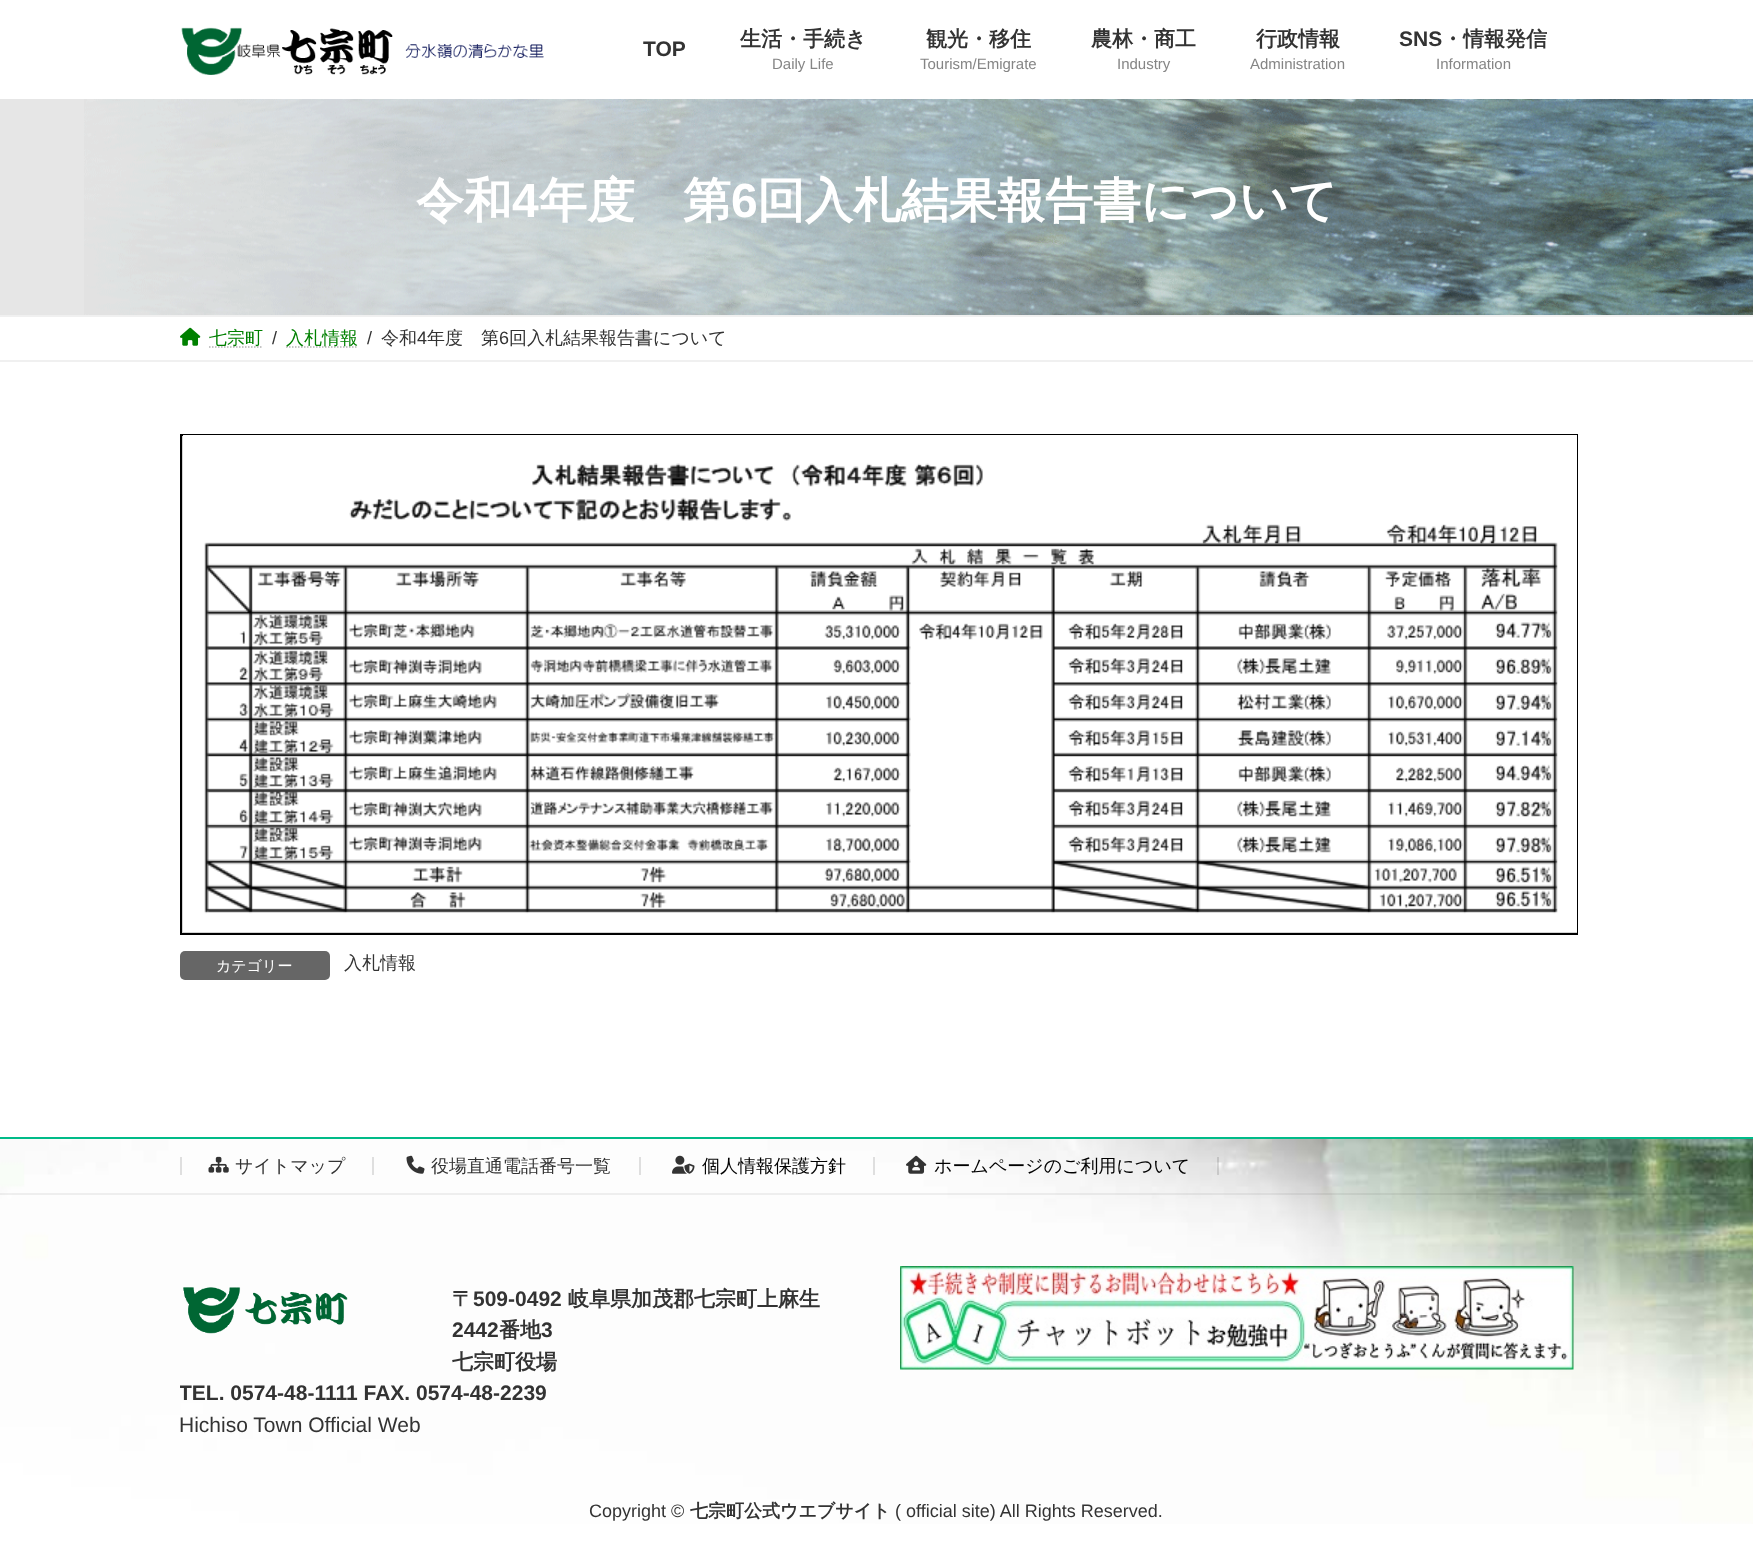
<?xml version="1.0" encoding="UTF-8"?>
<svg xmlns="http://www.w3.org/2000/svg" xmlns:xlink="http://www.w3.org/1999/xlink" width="1753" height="1560">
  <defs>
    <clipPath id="clip1"><rect x="180" y="1266" width="675" height="195" /></clipPath>
  </defs>
  <rect width="100%" height="100%" fill="#ffffff" />
  <rect y="99" width="84" height="216" fill="#e6e6e6" />
  <image x="181" y="27" width="363" height="48" xlink:href="image1.png" />
  <image x="84" y="99" width="1669" height="216" xlink:href="image2.png" />
  <rect y="315" width="1753" height="2" fill="#f0f0f0" />
  <rect y="360" width="1753" height="2" fill="#f0f0f0" />
  <image x="180" y="327" width="21" height="19" xlink:href="image3.png" />
  <path d="M 209 347 h 54" fill="none" stroke="#b3b3b3" stroke-width="1.5" stroke-dasharray="1.5 1.5" />
  <path d="M 286 347 h 72" fill="none" stroke="#b3b3b3" stroke-width="1.5" stroke-dasharray="1.5 1.5" />
  <rect x="182" y="436" width="1" height="497" fill="#d3d3d3" />
  <rect x="181" y="435" width="1396" height="499" fill="none" stroke="#000000" stroke-width="2" />
  <rect x="183" y="932" width="1394" height="1" fill="#d3d3d3" />
  <rect x="183" y="435" width="1394" height="497" fill="#ffffff" />
  <image x="204" y="463" width="1354" height="451" xlink:href="image4.png" />
  <rect x="180" y="951" width="150" height="29" rx="5" fill="#666666" />
  <image x="0" y="1139" width="1753" height="385" xlink:href="image5.png" />
  <rect y="1137" width="1753" height="2" fill="#00bb88" />
  <rect y="1193" width="1753" height="2" fill="#000000" fill-opacity="0.06" />
  <rect x="372" y="1157" width="2" height="18" fill="#dfdfdf" />
  <rect x="180" y="1157" width="2" height="18" fill="#dfdfdf" />
  <image x="208" y="1156" width="21" height="17" xlink:href="image6.png" />
  <rect x="639" y="1157" width="2" height="18" fill="#dfdfdf" />
  <image x="406" y="1155" width="19" height="19" xlink:href="image7.png" />
  <rect x="873" y="1157" width="2" height="18" fill="#dfdfdf" />
  <image x="672" y="1155" width="23" height="19" xlink:href="image8.png" />
  <rect x="1217" y="1157" width="2" height="18" fill="#000000" fill-opacity="0.12" />
  <image x="906" y="1155" width="21" height="19" xlink:href="image9.png" />
  <image x="183" y="1287" width="165" height="47" xlink:href="image10.png" />
  <image x="900" y="1266" width="674" height="104" xlink:href="image11.png" />
  <text x="643" y="56" style="font-family: Liberation Sans; font-size: 21px; font-weight: bold; fill: #333333">TOP</text>
  <text x="740" y="46" style="font-family: WenQuanYi Zen Hei; font-size: 21px; font-weight: bold; fill: #333333">生活・手続き</text>
  <text x="772" y="69" style="font-family: Liberation Sans; font-size: 15px; fill: #858585">Daily Life</text>
  <text x="926" y="46" style="font-family: WenQuanYi Zen Hei; font-size: 21px; font-weight: bold; fill: #333333">観光・移住</text>
  <text x="920" y="69" style="font-family: Liberation Sans; font-size: 15px; fill: #858585">Tourism/Emigrate</text>
  <text x="1091" y="46" style="font-family: WenQuanYi Zen Hei; font-size: 21px; font-weight: bold; fill: #333333">農林・商工</text>
  <text x="1117" y="69" style="font-family: Liberation Sans; font-size: 15px; fill: #858585">Industry</text>
  <text x="1256" y="46" style="font-family: WenQuanYi Zen Hei; font-size: 21px; font-weight: bold; fill: #333333">行政情報</text>
  <text x="1250" y="69" style="font-family: Liberation Sans; font-size: 15px; fill: #858585">Administration</text>
  <text x="1399" y="46" style="font-family: Liberation Sans; font-size: 21px; font-weight: bold; fill: #333333">SNS</text>
  <text x="1442" y="46" style="font-family: WenQuanYi Zen Hei; font-size: 21px; font-weight: bold; fill: #333333">・情報発信</text>
  <text x="1436" y="69" style="font-family: Liberation Sans; font-size: 15px; fill: #858585">Information</text>
  <text x="416" y="217" style="font-family: WenQuanYi Zen Hei; font-size: 48px; font-weight: bold; fill: #ffffff">令和</text>
  <text x="512" y="217" style="font-family: Liberation Sans; font-size: 48px; font-weight: bold; fill: #ffffff">4</text>
  <text x="539" y="217" style="font-family: WenQuanYi Zen Hei; font-size: 48px; font-weight: bold; fill: #ffffff">年度　第</text>
  <text x="731" y="217" style="font-family: Liberation Sans; font-size: 48px; font-weight: bold; fill: #ffffff">6</text>
  <text x="757" y="217" style="font-family: WenQuanYi Zen Hei; font-size: 48px; font-weight: bold; fill: #ffffff">回入札結果報告書について</text>
  <text x="209" y="344" style="font-family: WenQuanYi Zen Hei; font-size: 18px; font-weight: 500; fill: #008000">七宗町</text>
  <text x="272" y="344" style="font-family: Liberation Sans; font-size: 18px; fill: #333333">/</text>
  <text x="286" y="344" style="font-family: WenQuanYi Zen Hei; font-size: 18px; font-weight: 500; fill: #008000">入札情報</text>
  <text x="367" y="344" style="font-family: Liberation Sans; font-size: 18px; fill: #333333">/</text>
  <text x="381" y="344" style="font-family: WenQuanYi Zen Hei; font-size: 18px; font-weight: 500; fill: #333333">令和</text>
  <text x="417" y="344" style="font-family: Liberation Sans; font-size: 18px; fill: #333333">4</text>
  <text x="427" y="344" style="font-family: WenQuanYi Zen Hei; font-size: 18px; font-weight: 500; fill: #333333">年度　第</text>
  <text x="499" y="344" style="font-family: Liberation Sans; font-size: 18px; fill: #333333">6</text>
  <text x="509" y="344" style="font-family: WenQuanYi Zen Hei; font-size: 18px; font-weight: 500; fill: #333333">回入札結果報告書について</text>
  <text x="216" y="971" style="font-family: WenQuanYi Zen Hei; font-size: 15px; font-weight: 500; fill: #ffffff">カテゴリー</text>
  <text x="344" y="969" style="font-family: WenQuanYi Zen Hei; font-size: 18px; font-weight: 500; fill: #333333">入札情報</text>
  <text x="235" y="1172" style="font-family: WenQuanYi Zen Hei; font-size: 18px; font-weight: 500; fill: #333333">サイトマップ</text>
  <text x="431" y="1172" style="font-family: WenQuanYi Zen Hei; font-size: 18px; font-weight: 500; fill: #333333">役場直通電話番号一覧</text>
  <text x="702" y="1172" style="font-family: WenQuanYi Zen Hei; font-size: 18px; font-weight: 500; fill: #000000">個人情報保護方針</text>
  <text x="934" y="1172" style="font-family: WenQuanYi Zen Hei; font-size: 18px; font-weight: 500; fill: #000000">ホームページのご利用について</text>
  <text x="452" y="1306" style="font-family: WenQuanYi Zen Hei; font-size: 21px; font-weight: bold; fill: #333333">〒</text>
  <text x="473" y="1306" style="font-family: Liberation Sans; font-size: 21px; font-weight: bold; fill: #333333">509-0492</text>
  <text x="568" y="1306" style="font-family: WenQuanYi Zen Hei; font-size: 21px; font-weight: bold; fill: #333333">岐阜県加茂郡七宗町上麻生</text>
  <text x="452" y="1337" style="font-family: Liberation Sans; font-size: 21px; font-weight: bold; fill: #333333">2442</text>
  <text x="499" y="1337" style="font-family: WenQuanYi Zen Hei; font-size: 21px; font-weight: bold; fill: #333333">番地</text>
  <text x="541" y="1337" style="font-family: Liberation Sans; font-size: 21px; font-weight: bold; fill: #333333">3</text>
  <text x="452" y="1369" style="font-family: WenQuanYi Zen Hei; font-size: 21px; font-weight: bold; fill: #333333">七宗町役場</text>
  <g clip-path="url(#clip1)">
    <text x="179" y="1400" style="font-family: Liberation Sans; font-size: 21px; font-weight: bold; fill: #333333">TEL. 0574-48-1111 FAX. 0574-48-2239</text>
  </g>
  <text x="179" y="1432" style="font-family: Liberation Sans; font-size: 21px; fill: #333333">Hichiso Town Official Web</text>
  <text x="589" y="1517" style="font-family: Liberation Sans; font-size: 18px; fill: #333333">Copyright ©</text>
  <text x="690" y="1517" style="font-family: WenQuanYi Zen Hei; font-size: 18px; font-weight: bold; fill: #333333">七宗町公式ウエブサイト</text>
  <text x="895" y="1517" style="font-family: Liberation Sans; font-size: 18px; fill: #333333">( official site) All Rights Reserved.</text>
</svg>
